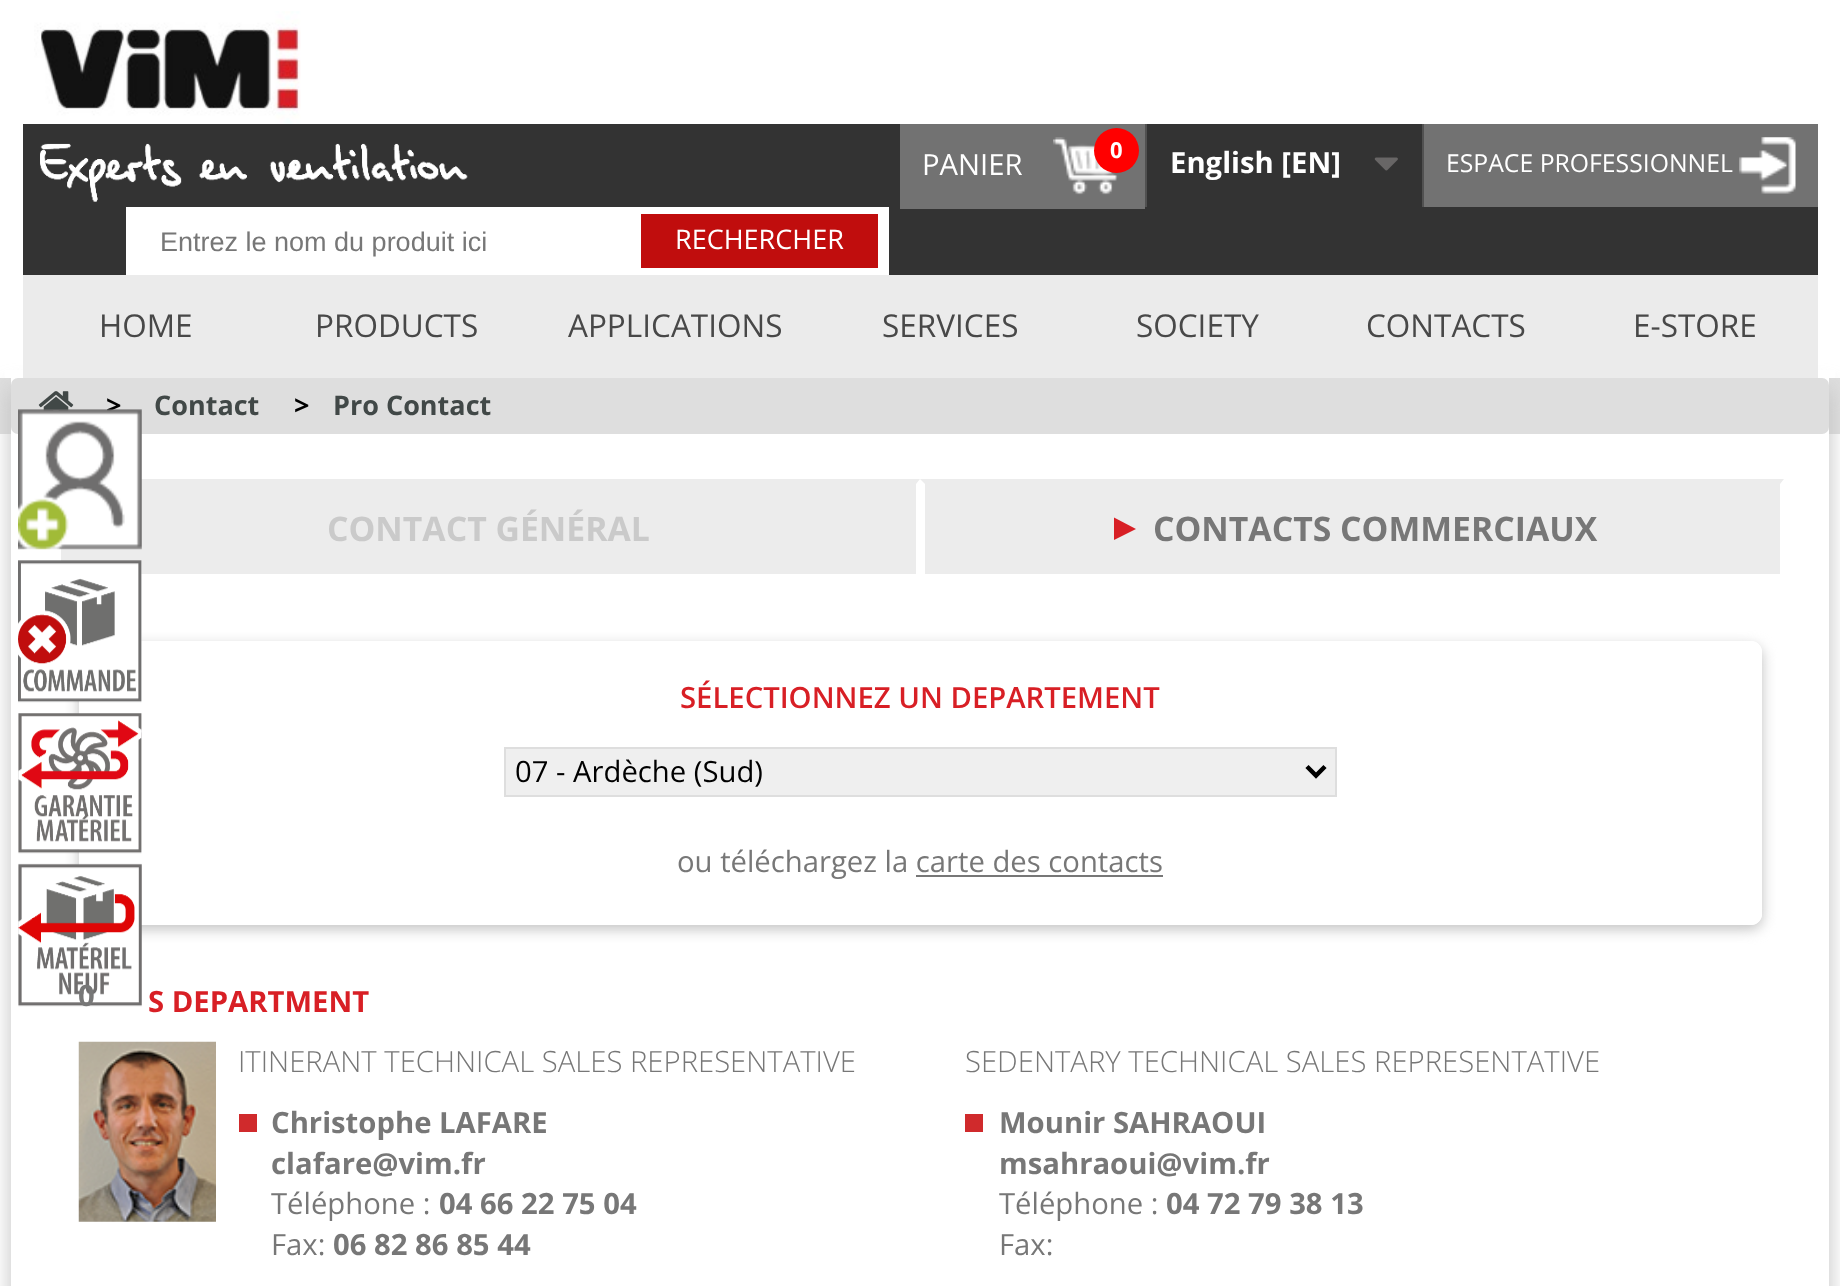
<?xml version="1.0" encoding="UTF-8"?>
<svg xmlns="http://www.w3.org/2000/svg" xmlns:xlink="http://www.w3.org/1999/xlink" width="1840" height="1286">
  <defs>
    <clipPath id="clip1"><path d="M 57 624 h 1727 v 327 h -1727 z m 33 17 h 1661 c 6 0 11 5 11 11 v 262 c 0 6 -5 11 -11 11 h -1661 c -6 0 -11 -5 -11 -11 v -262 c 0 -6 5 -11 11 -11 z" clip-rule="evenodd" /></clipPath>
  </defs>
  <rect width="100%" height="100%" fill="#ffffff" />
  <rect y="378" width="1840" height="56" fill="#dedede" />
  <rect x="11" y="389" width="1818" height="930" fill="#c0c0c0" filter="blur(11px)" />
  <rect x="5" y="370" width="1830" height="8" fill="#ffffff" />
  <image x="34" y="11" width="267" height="113" xlink:href="image1.png" />
  <rect x="23" y="124" width="1795" height="151" fill="#333333" />
  <image x="40" y="143" width="428" height="59" xlink:href="image2.png" />
  <rect x="900" y="124" width="245" height="85" fill="#727272" />
  <image x="1053" y="137" width="66" height="58" xlink:href="image3.png" />
  <circle cx="1116.5" cy="150.5" r="22.5" fill="#ff0000" />
  <rect x="1145" y="124" width="2" height="83" fill="#515151" />
  <image x="1374" y="157" width="24" height="14" xlink:href="image4.png" />
  <rect x="1424" y="124" width="394" height="83" fill="#727272" />
  <rect x="1422" y="124" width="2" height="83" fill="#515151" />
  <image x="1739" y="137" width="57" height="57" xlink:href="image5.png" />
  <rect x="126" y="207" width="763" height="68" fill="#ffffff" />
  <rect x="641" y="214" width="237" height="54" fill="#c00d0d" />
  <rect x="23" y="275" width="1795" height="103" fill="#ebebeb" />
  <rect x="11" y="378" width="1818" height="908" fill="#ffffff" />
  <rect x="61" y="479" width="1723" height="95" fill="#ececec" />
  <g clip-path="url(#clip1)">
    <rect x="79" y="646" width="1683" height="283" rx="11" fill="#c0c0c0" filter="blur(7px)" />
  </g>
  <rect x="83.5" y="645.5" width="1674" height="275" rx="6.5" fill="none" stroke="#ffffff" stroke-width="9" />
  <image x="18" y="560" width="124" height="143" xlink:href="image7.png" />
  <image x="18" y="713" width="124" height="141" xlink:href="image8.png" />
  <image x="18" y="863" width="124" height="144" xlink:href="image9.png" />
  <rect x="11" y="378" width="1818" height="56" rx="7" fill="#dedede" />
  <image x="38" y="391" width="36" height="20" xlink:href="image10.png" />
  <path d="M 920 479 v 95 h -4 v -90 z" fill="#ffffff" />
  <path d="M 1784 479 v 95 h -4 v -90 z" fill="#ffffff" />
  <path d="M 920 574 v -95 l 5 5 v 90 z" fill="#ffffff" />
  <path d="M 1114 540 v -22.5 l 22 11.5 z" fill="#d81f25" />
  <rect x="505" y="748" width="831" height="48" fill="#efefef" stroke="#dedede" stroke-width="2" />
  <path d="M 1307 766.5 l 9 9 l 9 -9" fill="none" stroke="#000000" stroke-width="4.5" />
  <rect x="916" y="875" width="247" height="2" fill="#777777" />
  <image x="78" y="1041" width="138" height="181" xlink:href="image11.png" />
  <rect x="239" y="1114" width="18" height="18" fill="#d02a2c" />
  <rect x="965" y="1114" width="18" height="18" fill="#d02a2c" />
  <text x="1110" y="158" style="font-family: Open Sans; font-size: 22px; font-weight: bold; fill: #ffffff">0</text>
  <text x="922" y="175" style="font-family: Open Sans; font-size: 29.25px; fill: #ffffff">PANIER</text>
  <text x="1170" y="173" style="font-family: Open Sans; font-size: 29.25px; font-weight: bold; fill: #ffffff">English [EN]</text>
  <text x="1446" y="172" style="font-family: Open Sans; font-size: 24.75px; fill: #ffffff">ESPACE PROFESSIONNEL</text>
  <text x="160" y="251" style="font-family: Liberation Sans; font-size: 27px; fill: #777777">Entrez le nom du produit ici</text>
  <text x="675" y="249" style="font-family: Open Sans; font-size: 27px; fill: #ffffff">RECHERCHER</text>
  <text x="99" y="337" style="font-family: Open Sans; font-size: 31.5px; fill: #484848">HOME</text>
  <text x="315" y="337" style="font-family: Open Sans; font-size: 31.5px; fill: #484848">PRODUCTS</text>
  <text x="568" y="337" style="font-family: Open Sans; font-size: 31.5px; fill: #484848">APPLICATIONS</text>
  <text x="882" y="337" style="font-family: Open Sans; font-size: 31.5px; fill: #484848">SERVICES</text>
  <text x="1136" y="337" style="font-family: Open Sans; font-size: 31.5px; fill: #484848">SOCIETY</text>
  <text x="1366" y="337" style="font-family: Open Sans; font-size: 31.5px; fill: #484848">CONTACTS</text>
  <text x="1633" y="337" style="font-family: Open Sans; font-size: 31.5px; fill: #484848">E-STORE</text>
  <text x="78" y="1006" style="font-family: Open Sans; font-size: 29.25px; font-weight: bold; fill: #777777">0</text>
  <text x="106" y="415" style="font-family: Open Sans; font-size: 27px; font-weight: bold; fill: #000000">&gt;</text>
  <image x="18" y="409" width="124" height="141" xlink:href="image6.png" />
  <text x="154" y="415" style="font-family: Open Sans; font-size: 27px; font-weight: bold; fill: #414847">Contact</text>
  <text x="294" y="415" style="font-family: Open Sans; font-size: 27px; font-weight: bold; fill: #000000">&gt;</text>
  <text x="333" y="415" style="font-family: Open Sans; font-size: 27px; font-weight: bold; fill: #414847">Pro Contact</text>
  <text x="327" y="541" style="font-family: Open Sans; font-size: 33.75px; font-weight: bold; fill: #cacaca">CONTACT GÉNÉRAL</text>
  <text x="1153" y="541" style="font-family: Open Sans; font-size: 33.75px; font-weight: bold; fill: #777777">CONTACTS COMMERCIAUX</text>
  <text x="680" y="708" style="font-family: Open Sans; font-size: 29.25px; font-weight: 600; fill: #d81f25">SÉLECTIONNEZ UN DEPARTEMENT</text>
  <text x="515" y="782" style="font-family: Open Sans; font-size: 29.25px; fill: #000000">07 - Ardèche (Sud)</text>
  <text x="677" y="872" style="font-family: Open Sans; font-size: 29.25px; fill: #777777">ou téléchargez la carte des contacts</text>
  <text x="148" y="1012" style="font-family: Open Sans; font-size: 29.25px; font-weight: bold; fill: #d81f25">S DEPARTMENT</text>
  <text x="238" y="1072" style="font-family: Open Sans; font-size: 29.25px; font-weight: 300; fill: #777777">ITINERANT TECHNICAL SALES REPRESENTATIVE</text>
  <text x="271" y="1133" style="font-family: Open Sans; font-size: 29.25px; font-weight: bold; fill: #777777">Christophe LAFARE</text>
  <text x="271" y="1174" style="font-family: Open Sans; font-size: 29.25px; font-weight: bold; fill: #777777">clafare@vim.fr</text>
  <text x="271" y="1214" style="font-family: Open Sans; font-size: 29.25px; fill: #777777">Téléphone :</text>
  <text x="439" y="1214" style="font-family: Open Sans; font-size: 29.25px; font-weight: bold; fill: #777777">04 66 22 75 04</text>
  <text x="271" y="1255" style="font-family: Open Sans; font-size: 29.25px; fill: #777777">Fax:</text>
  <text x="333" y="1255" style="font-family: Open Sans; font-size: 29.25px; font-weight: bold; fill: #777777">06 82 86 85 44</text>
  <text x="965" y="1072" style="font-family: Open Sans; font-size: 29.25px; font-weight: 300; fill: #777777">SEDENTARY TECHNICAL SALES REPRESENTATIVE</text>
  <text x="999" y="1133" style="font-family: Open Sans; font-size: 29.25px; font-weight: bold; fill: #777777">Mounir SAHRAOUI</text>
  <text x="999" y="1174" style="font-family: Open Sans; font-size: 29.25px; font-weight: bold; fill: #777777">msahraoui@vim.fr</text>
  <text x="999" y="1214" style="font-family: Open Sans; font-size: 29.25px; fill: #777777">Téléphone :</text>
  <text x="1166" y="1214" style="font-family: Open Sans; font-size: 29.25px; font-weight: bold; fill: #777777">04 72 79 38 13</text>
  <text x="999" y="1255" style="font-family: Open Sans; font-size: 29.25px; fill: #777777">Fax:</text>
</svg>
